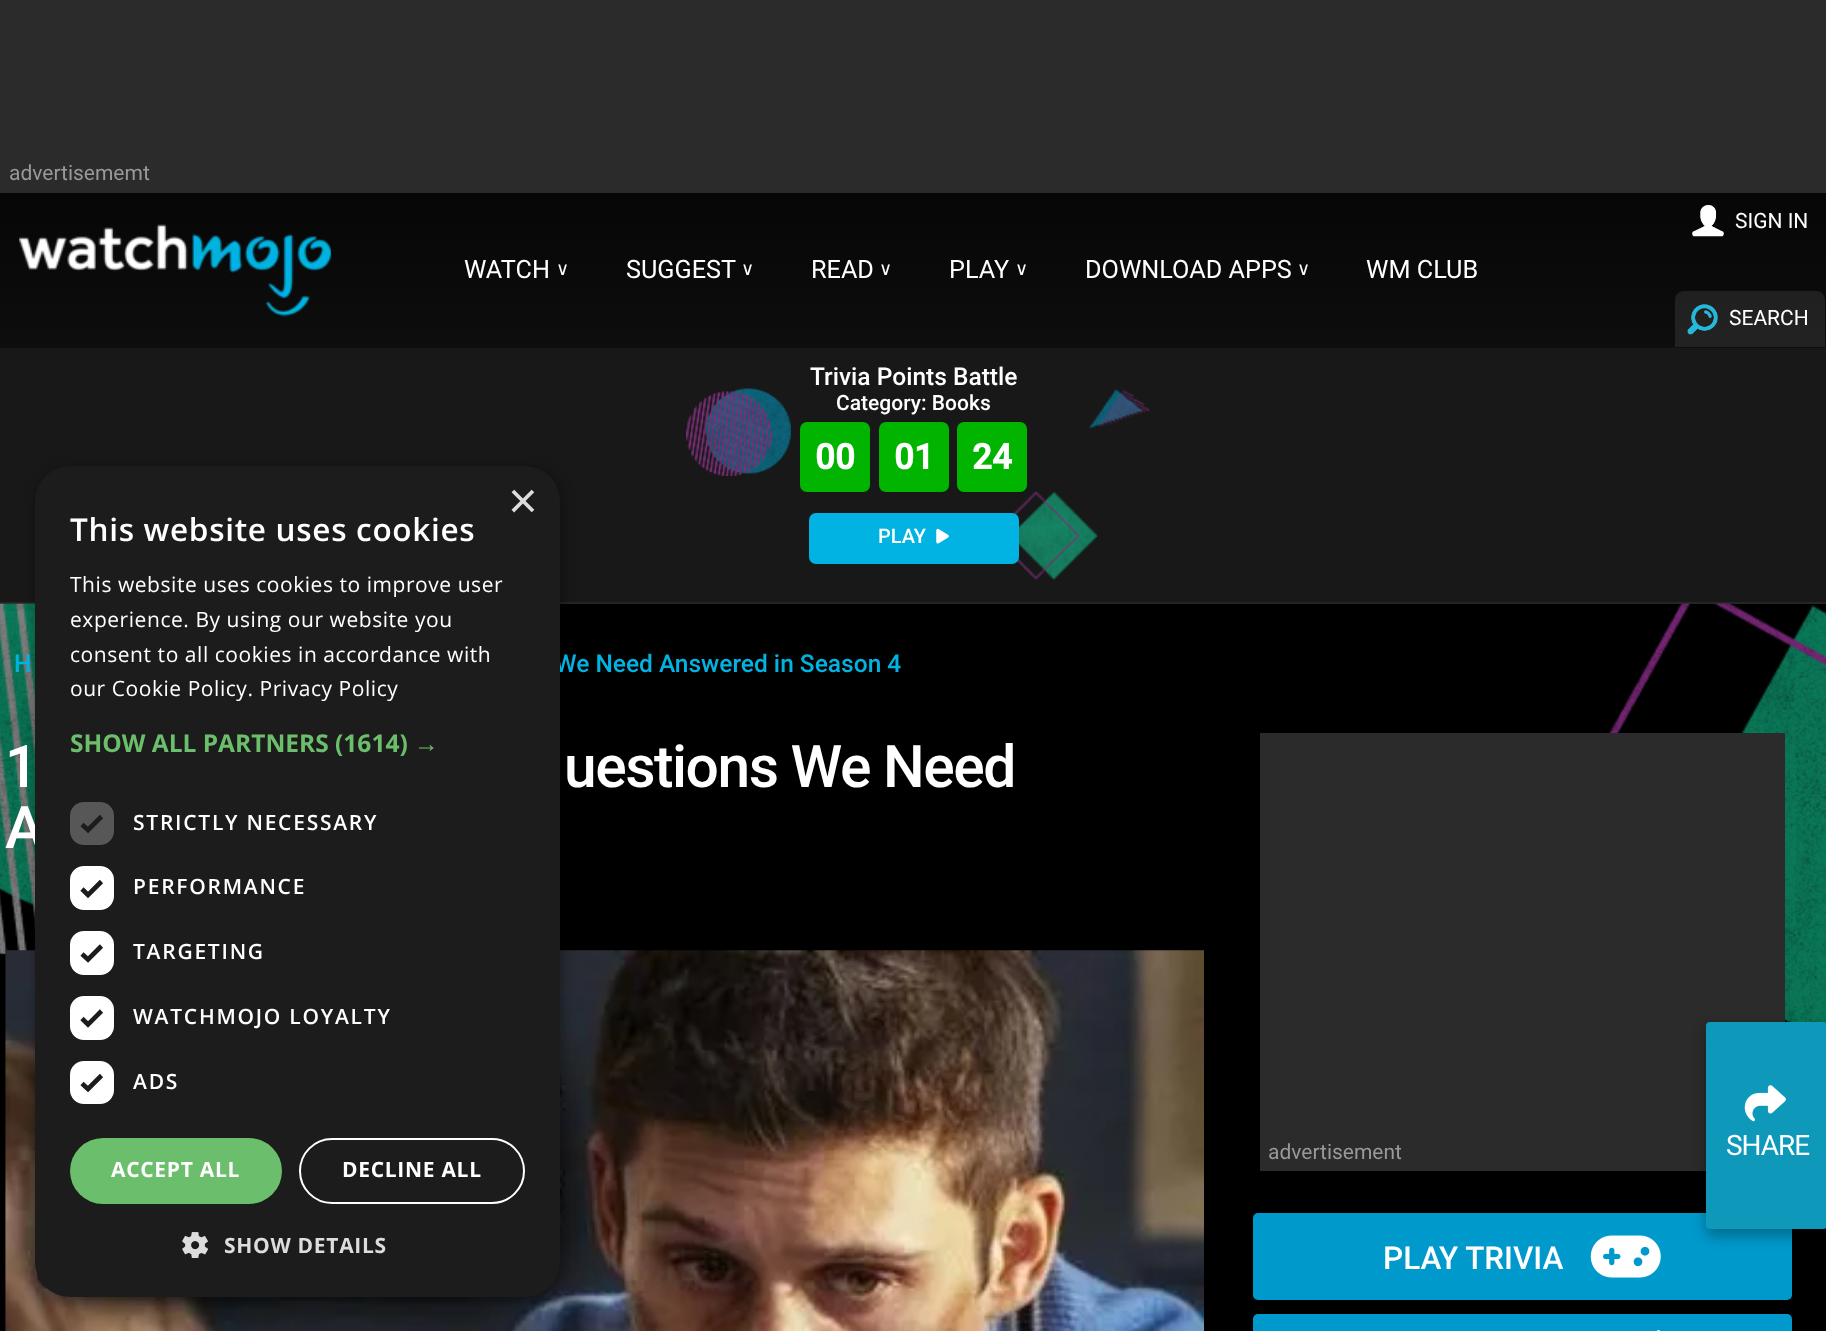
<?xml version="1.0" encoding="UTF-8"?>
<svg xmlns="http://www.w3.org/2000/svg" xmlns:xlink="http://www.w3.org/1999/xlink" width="1826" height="1331">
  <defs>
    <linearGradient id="g1" gradientUnits="userSpaceOnUse" x1="914" y1="192" x2="914" y2="602"><stop offset="0" stop-color="#060606" /><stop offset="1" stop-color="#1a1a1a" /></linearGradient>
  </defs>
  <rect width="100%" height="100%" fill="#000000" />
  <rect width="1826" height="193" fill="#2b2b2b" />
  <rect y="193" width="1826" height="155" fill="url(#g1)" />
  <image x="19" y="224" width="312" height="93" xlink:href="image1.png" />
  <image x="1692" y="205" width="32" height="32" xlink:href="image2.png" />
  <path d="M 1684 291 h 132 c 5 0 9 4 9 9 v 47 h -150 v -47 c 0 -5 4 -9 9 -9 z" fill="#9b9b9b" fill-opacity="0.15" />
  <image x="1687" y="304" width="31" height="31" xlink:href="image3.png" />
  <rect y="348" width="1826" height="254" fill="#181818" />
  <image x="686" y="388" width="105" height="88" xlink:href="image4.png" />
  <image x="1088" y="389" width="62" height="40" xlink:href="image5.png" />
  <rect x="800" y="422" width="70" height="70" rx="7" fill="#00b400" />
  <rect x="879" y="422" width="70" height="70" rx="7" fill="#00b400" />
  <image x="1013" y="491" width="85" height="89" xlink:href="image7.png" />
  <rect x="957" y="422" width="70" height="70" rx="7" fill="#00b400" />
  <rect x="809" y="513" width="210" height="51" rx="7" fill="#00b3e2" />
  <image x="936" y="528" width="13" height="16" xlink:href="image6.png" />
  <rect y="602" width="1826" height="2" fill="#252525" />
  <image x="0" y="603" width="35" height="352" xlink:href="image9.png" />
  <image x="5" y="950" width="1199" height="381" xlink:href="image11.png" />
  <rect x="37" y="469" width="525" height="831" rx="35" fill="#000000" fill-opacity="0.35" filter="blur(7px)" />
  <image x="1609" y="603" width="217" height="421" xlink:href="image10.png" />
  <rect x="1260" y="733" width="525" height="438" fill="#2b2b2b" />
  <rect x="1253" y="1213" width="539" height="87" rx="5" fill="#0099cc" />
  <image x="1590" y="1235" width="71" height="43" xlink:href="image12.png" />
  <rect x="1253" y="1314" width="539" height="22" rx="5" fill="#0099cc" />
  <image x="1636" y="1330" width="24" height="1" xlink:href="image13.png" />
  <rect x="1706" y="1029" width="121" height="207" rx="4" fill="#000000" fill-opacity="0.3" filter="blur(7px)" />
  <rect x="1706" y="1022" width="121" height="207" rx="4" fill="#0e99bb" />
  <image x="1744" y="1085" width="42" height="37" xlink:href="image14.png" />
  <text x="9" y="180" style="font-family: Roboto; font-size: 21px; fill: #999999">advertisememt</text>
  <text x="464" y="278" style="font-family: Roboto; font-size: 25.25px; fill: #ffffff">WATCH</text>
  <text x="556" y="275" style="font-family: DejaVu Sans; font-size: 18px; letter-spacing: 13px; fill: #ffffff">∨</text>
  <text x="626" y="278" style="font-family: Roboto; font-size: 25.25px; fill: #ffffff">SUGGEST</text>
  <text x="741" y="275" style="font-family: DejaVu Sans; font-size: 18px; letter-spacing: 13px; fill: #ffffff">∨</text>
  <text x="811" y="278" style="font-family: Roboto; font-size: 25.25px; fill: #ffffff">READ</text>
  <text x="879" y="275" style="font-family: DejaVu Sans; font-size: 18px; letter-spacing: 13px; fill: #ffffff">∨</text>
  <text x="949" y="278" style="font-family: Roboto; font-size: 25.25px; fill: #ffffff">PLAY</text>
  <text x="1015" y="275" style="font-family: DejaVu Sans; font-size: 18px; letter-spacing: 13px; fill: #ffffff">∨</text>
  <text x="1085" y="278" style="font-family: Roboto; font-size: 25.25px; fill: #ffffff">DOWNLOAD APPS</text>
  <text x="1297" y="275" style="font-family: DejaVu Sans; font-size: 18px; letter-spacing: 13px; fill: #ffffff">∨</text>
  <text x="1366" y="278" style="font-family: Roboto; font-size: 25.25px; fill: #ffffff">WM CLUB</text>
  <text x="1735" y="228" style="font-family: Roboto; font-size: 21px; fill: #ffffff">SIGN IN</text>
  <text x="1729" y="325" style="font-family: Roboto; font-size: 21px; fill: #ffffff">SEARCH</text>
  <text x="810" y="385" style="font-family: Roboto; font-size: 24.5px; font-weight: 500; fill: #ffffff">Trivia Points Battle</text>
  <text x="836" y="410" style="font-family: Roboto; font-size: 21px; font-weight: 500; fill: #ffffff">Category: Books</text>
  <text x="815" y="469" style="font-family: Roboto; font-size: 35px; font-weight: bold; fill: #ffffff">00</text>
  <text x="894" y="469" style="font-family: Roboto; font-size: 35px; font-weight: bold; fill: #ffffff">01</text>
  <text x="972" y="469" style="font-family: Roboto; font-size: 35px; font-weight: bold; fill: #ffffff">24</text>
  <text x="878" y="543" style="font-family: Roboto; font-size: 20px; font-weight: 500; fill: #ffffff">PLAY</text>
  <text x="14" y="672" style="font-family: Roboto; font-size: 24.5px; font-weight: 500; fill: #00b3e2">H</text>
  <text x="555" y="672" style="font-family: Roboto; font-size: 24.5px; font-weight: 500; fill: #00b3e2">We Need Answered in Season 4</text>
  <text x="5" y="787" style="font-family: Roboto; font-size: 58.75px; font-weight: 500; letter-spacing: -1.5px; fill: #ffffff">1</text>
  <text x="564" y="787" style="font-family: Roboto; font-size: 58.75px; font-weight: 500; letter-spacing: -1.5px; fill: #ffffff">uestions We Need</text>
  <text x="5" y="848" style="font-family: Roboto; font-size: 58.75px; font-weight: 500; letter-spacing: -1.5px; fill: #ffffff">A</text>
  <rect x="35" y="466" width="525" height="831" rx="35" fill="#1c1c1c" />
  <text x="508" y="518" style="font-family: Liberation Sans; font-size: 51px; fill: #dddddd">×</text>
  <image x="182" y="1232" width="26" height="26" xlink:href="image8.png" />
  <text x="224" y="1253" style="font-family: Open Sans; font-size: 21px; font-weight: bold; letter-spacing: 0.7px; fill: #dddddd">SHOW DETAILS</text>
  <rect x="72" y="1063" width="40" height="39" rx="12" fill="#ffffff" stroke="#ffffff" stroke-width="4" />
  <path d="M 82 1083.5 l 6 5.5 l 13.5 -13.5" fill="none" stroke="#1c1c1c" stroke-width="4.6" />
  <rect x="72" y="998" width="40" height="40" rx="12" fill="#ffffff" stroke="#ffffff" stroke-width="4" />
  <path d="M 82 1018.5 l 6 6 l 13.5 -13.5" fill="none" stroke="#1c1c1c" stroke-width="4.6" />
  <rect x="72" y="933" width="40" height="40" rx="12" fill="#ffffff" stroke="#ffffff" stroke-width="4" />
  <path d="M 82 954 l 6 5.5 l 13.5 -13.5" fill="none" stroke="#1c1c1c" stroke-width="4.6" />
  <rect x="72" y="868" width="40" height="40" rx="12" fill="#ffffff" stroke="#ffffff" stroke-width="4" />
  <path d="M 82 889 l 6 6 l 13.5 -13.5" fill="none" stroke="#1c1c1c" stroke-width="4.6" />
  <rect x="70" y="802" width="44" height="43" rx="14" fill="#575757" />
  <path d="M 82 824.5 l 6 5.5 l 13.5 -13.5" fill="none" stroke="#1c1c1c" stroke-width="4.6" />
  <rect x="300" y="1139" width="224" height="64" rx="32" fill="none" stroke="#ffffff" stroke-width="2" />
  <text x="342" y="1177" style="font-family: Open Sans; font-size: 21px; font-weight: bold; letter-spacing: 0.7px; fill: #ffffff">DECLINE ALL</text>
  <rect x="70" y="1138" width="212" height="66" rx="33" fill="#6bbe6b" />
  <text x="111" y="1177" style="font-family: Open Sans; font-size: 21px; font-weight: bold; letter-spacing: 0.7px; fill: #ffffff">ACCEPT ALL</text>
  <text x="133" y="1089" style="font-family: Open Sans; font-size: 21px; font-weight: 600; letter-spacing: 1.75px; fill: #ffffff">ADS</text>
  <text x="133" y="1024" style="font-family: Open Sans; font-size: 21px; font-weight: 600; letter-spacing: 1.75px; fill: #ffffff">WATCHMOJO LOYALTY</text>
  <text x="133" y="959" style="font-family: Open Sans; font-size: 21px; font-weight: 600; letter-spacing: 1.75px; fill: #ffffff">TARGETING</text>
  <text x="133" y="894" style="font-family: Open Sans; font-size: 21px; font-weight: 600; letter-spacing: 1.75px; fill: #ffffff">PERFORMANCE</text>
  <text x="133" y="830" style="font-family: Open Sans; font-size: 21px; font-weight: 600; letter-spacing: 1.75px; fill: #ffffff">STRICTLY NECESSARY</text>
  <text x="414" y="752" style="font-family: Liberation Sans; font-size: 24.5px; font-weight: bold; fill: #6bbe6b">→</text>
  <text x="70" y="752" style="font-family: Open Sans; font-size: 24.5px; font-weight: bold; fill: #6bbe6b">SHOW ALL PARTNERS (1614)</text>
  <text x="70" y="696" style="font-family: Open Sans; font-size: 21px; letter-spacing: 0.55px; fill: #ffffff">our Cookie Policy. Privacy Policy</text>
  <text x="70" y="662" style="font-family: Open Sans; font-size: 21px; letter-spacing: 0.55px; fill: #ffffff">consent to all cookies in accordance with</text>
  <text x="70" y="627" style="font-family: Open Sans; font-size: 21px; letter-spacing: 0.55px; fill: #ffffff">experience. By using our website you</text>
  <text x="70" y="592" style="font-family: Open Sans; font-size: 21px; letter-spacing: 0.55px; fill: #ffffff">This website uses cookies to improve user</text>
  <text x="70" y="541" style="font-family: Open Sans; font-size: 31.5px; font-weight: 600; letter-spacing: 0.7px; fill: #ffffff">This website uses cookies</text>
  <text x="1268" y="1159" style="font-family: Roboto; font-size: 21px; fill: #999999">advertisement</text>
  <text x="1383" y="1269" style="font-family: Roboto; font-size: 31.5px; font-weight: 500; fill: #ffffff">PLAY TRIVIA</text>
  <text x="1726" y="1155" style="font-family: Roboto; font-size: 28px; letter-spacing: -1px; fill: #ffffff">SHARE</text>
</svg>
